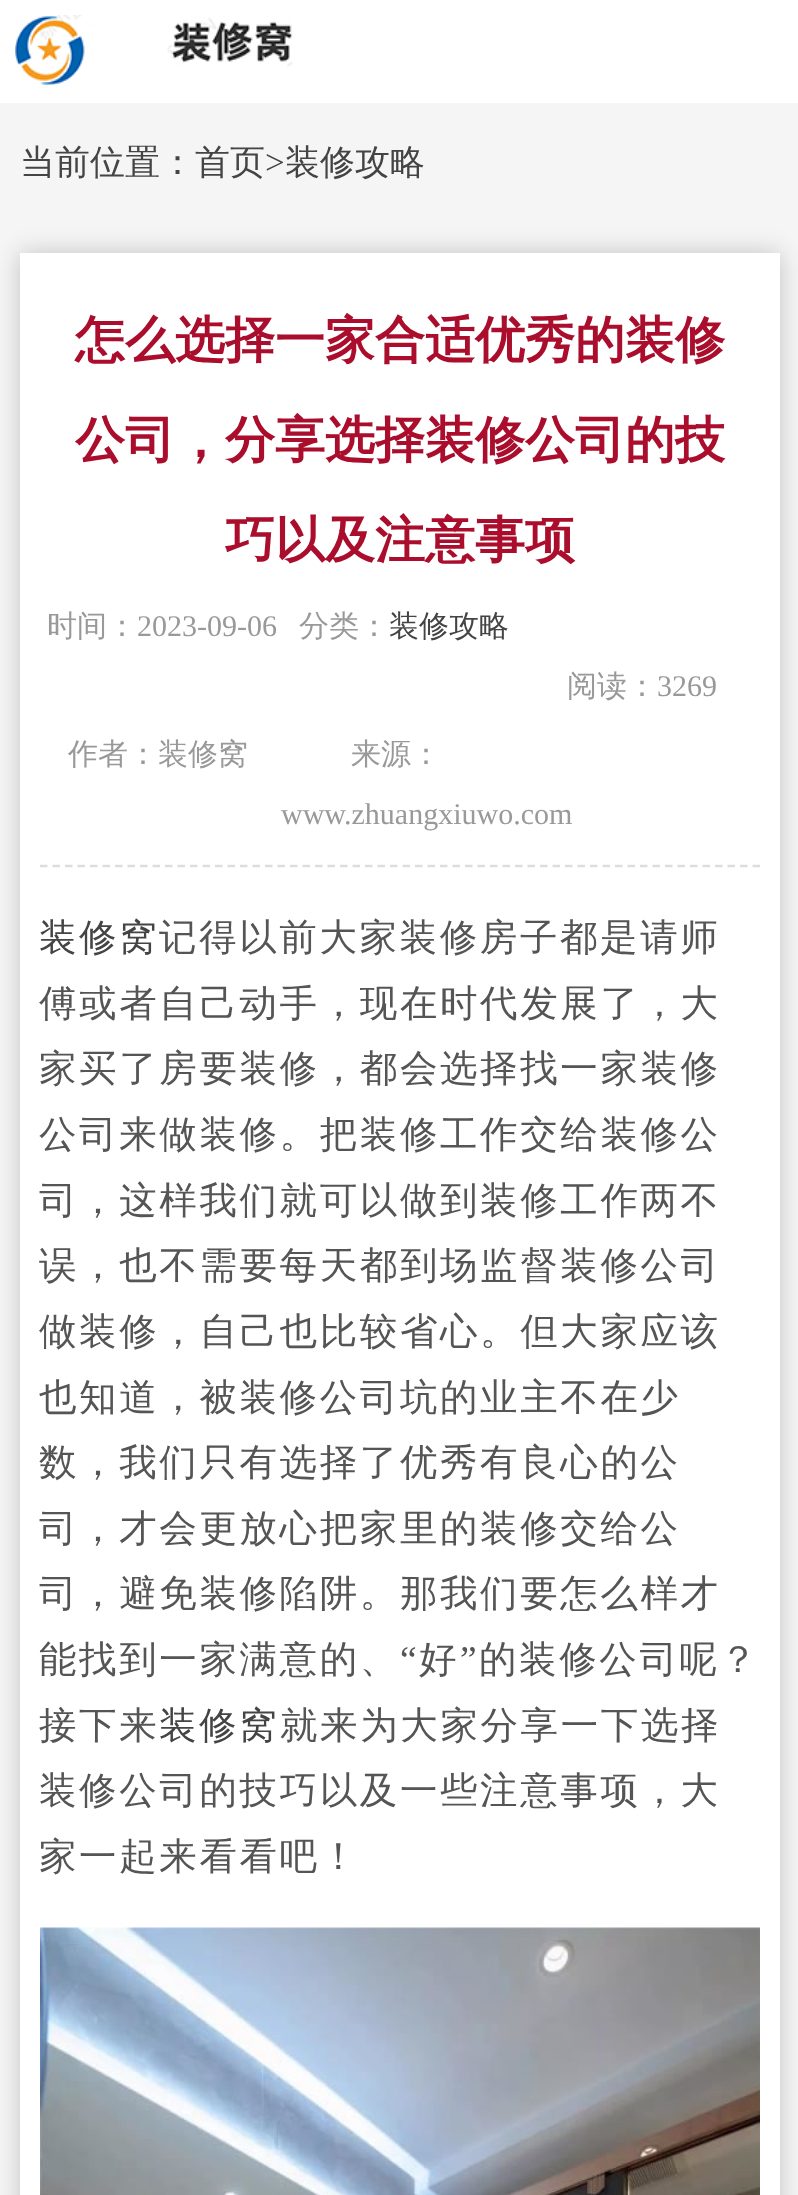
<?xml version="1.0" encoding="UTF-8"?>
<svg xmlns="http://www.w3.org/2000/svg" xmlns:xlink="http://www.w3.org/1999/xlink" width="798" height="2195">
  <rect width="100%" height="100%" fill="#f5f5f5" />
  <rect width="798" height="103" fill="#ffffff" />
  <image x="15" y="15" width="278" height="70" xlink:href="image1.png" />
  <rect x="20" y="253" width="760" height="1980" fill="#000000" fill-opacity="0.2" filter="blur(12.5px)" />
  <rect x="20" y="253" width="760" height="1942" fill="#ffffff" />
  <path d="M 40 866 h 720" fill="none" stroke="#dddddd" stroke-width="2.5" stroke-dasharray="7.5 5" />
  <image x="40" y="1927" width="720" height="268" xlink:href="image2.png" />
  <text x="20" y="174" style="font-family: WenQuanYi Zen Hei; font-size: 35px; font-weight: 500; fill: #444444">当前位置：首页</text>
  <text x="265" y="174" style="font-family: Liberation Serif; font-size: 35px; fill: #444444">&gt;</text>
  <text x="285" y="174" style="font-family: WenQuanYi Zen Hei; font-size: 35px; font-weight: 500; fill: #444444">装修攻略</text>
  <text x="75" y="357" style="font-family: WenQuanYi Zen Hei; font-size: 50px; font-weight: bold; fill: #ab0e2d">怎么选择一家合适优秀的装修</text>
  <text x="75" y="457" style="font-family: WenQuanYi Zen Hei; font-size: 50px; font-weight: bold; fill: #ab0e2d">公司，分享选择装修公司的技</text>
  <text x="225" y="557" style="font-family: WenQuanYi Zen Hei; font-size: 50px; font-weight: bold; fill: #ab0e2d">巧以及注意事项</text>
  <text x="47" y="636" style="font-family: WenQuanYi Zen Hei; font-size: 30px; font-weight: 500; fill: #999999">时间：</text>
  <text x="137" y="636" style="font-family: Liberation Serif; font-size: 30px; fill: #999999">2023-09-06</text>
  <text x="299" y="636" style="font-family: WenQuanYi Zen Hei; font-size: 30px; font-weight: 500; fill: #999999">分类：</text>
  <text x="389" y="636" style="font-family: WenQuanYi Zen Hei; font-size: 30px; font-weight: 500; fill: #444444">装修攻略</text>
  <text x="567" y="696" style="font-family: WenQuanYi Zen Hei; font-size: 30px; font-weight: 500; fill: #999999">阅读：</text>
  <text x="657" y="696" style="font-family: Liberation Serif; font-size: 30px; fill: #999999">3269</text>
  <text x="68" y="764" style="font-family: WenQuanYi Zen Hei; font-size: 30px; font-weight: 500; fill: #999999">作者：装修窝</text>
  <text x="351" y="764" style="font-family: WenQuanYi Zen Hei; font-size: 30px; font-weight: 500; fill: #999999">来源：</text>
  <text x="281" y="824" style="font-family: Liberation Serif; font-size: 30px; fill: #999999">www.zhuangxiuwo.com</text>
  <text x="39" y="950" style="font-family: WenQuanYi Zen Hei; font-size: 37.5px; font-weight: 500; letter-spacing: 2.6px; fill: #444444">装修窝</text>
  <text x="159" y="950" style="font-family: WenQuanYi Zen Hei; font-size: 37.5px; font-weight: 500; letter-spacing: 2.6px; fill: #555555">记得以前大家装修房子都是请师</text>
  <text x="39" y="1016" style="font-family: WenQuanYi Zen Hei; font-size: 37.5px; font-weight: 500; letter-spacing: 2.6px; fill: #555555">傅或者自己动手，现在时代发展了，大</text>
  <text x="39" y="1081" style="font-family: WenQuanYi Zen Hei; font-size: 37.5px; font-weight: 500; letter-spacing: 2.6px; fill: #555555">家买了房要装修，都会选择找一家装修</text>
  <text x="39" y="1147" style="font-family: WenQuanYi Zen Hei; font-size: 37.5px; font-weight: 500; letter-spacing: 2.6px; fill: #555555">公司来做装修。把装修工作交给装修公</text>
  <text x="39" y="1213" style="font-family: WenQuanYi Zen Hei; font-size: 37.5px; font-weight: 500; letter-spacing: 2.6px; fill: #555555">司，这样我们就可以做到装修工作两不</text>
  <text x="39" y="1278" style="font-family: WenQuanYi Zen Hei; font-size: 37.5px; font-weight: 500; letter-spacing: 2.6px; fill: #555555">误，也不需要每天都到场监督装修公司</text>
  <text x="39" y="1344" style="font-family: WenQuanYi Zen Hei; font-size: 37.5px; font-weight: 500; letter-spacing: 2.6px; fill: #555555">做装修，自己也比较省心。但大家应该</text>
  <text x="39" y="1410" style="font-family: WenQuanYi Zen Hei; font-size: 37.5px; font-weight: 500; letter-spacing: 2.6px; fill: #555555">也知道，被装修公司坑的业主不在少</text>
  <text x="39" y="1475" style="font-family: WenQuanYi Zen Hei; font-size: 37.5px; font-weight: 500; letter-spacing: 2.6px; fill: #555555">数，我们只有选择了优秀有良心的公</text>
  <text x="39" y="1541" style="font-family: WenQuanYi Zen Hei; font-size: 37.5px; font-weight: 500; letter-spacing: 2.6px; fill: #555555">司，才会更放心把家里的装修交给公</text>
  <text x="39" y="1606" style="font-family: WenQuanYi Zen Hei; font-size: 37.5px; font-weight: 500; letter-spacing: 2.6px; fill: #555555">司，避免装修陷阱。那我们要怎么样才</text>
  <text x="39" y="1672" style="font-family: WenQuanYi Zen Hei; font-size: 37.5px; font-weight: 500; letter-spacing: 2.6px; fill: #555555">能找到一家满意的、</text>
  <text x="400" y="1672" style="font-family: Liberation Serif; font-size: 37.5px; letter-spacing: 2.6px; fill: #555555">“</text>
  <text x="419" y="1672" style="font-family: WenQuanYi Zen Hei; font-size: 37.5px; font-weight: 500; letter-spacing: 2.6px; fill: #555555">好</text>
  <text x="460" y="1672" style="font-family: Liberation Serif; font-size: 37.5px; letter-spacing: 2.6px; fill: #555555">”</text>
  <text x="479" y="1672" style="font-family: WenQuanYi Zen Hei; font-size: 37.5px; font-weight: 500; letter-spacing: 2.6px; fill: #555555">的装修公司呢？</text>
  <text x="39" y="1738" style="font-family: WenQuanYi Zen Hei; font-size: 37.5px; font-weight: 500; letter-spacing: 2.6px; fill: #555555">接下来</text>
  <text x="159" y="1738" style="font-family: WenQuanYi Zen Hei; font-size: 37.5px; font-weight: 500; letter-spacing: 2.6px; fill: #444444">装修窝</text>
  <text x="280" y="1738" style="font-family: WenQuanYi Zen Hei; font-size: 37.5px; font-weight: 500; letter-spacing: 2.6px; fill: #555555">就来为大家分享一下选择</text>
  <text x="39" y="1803" style="font-family: WenQuanYi Zen Hei; font-size: 37.5px; font-weight: 500; letter-spacing: 2.6px; fill: #555555">装修公司的技巧以及一些注意事项，大</text>
  <text x="39" y="1869" style="font-family: WenQuanYi Zen Hei; font-size: 37.5px; font-weight: 500; letter-spacing: 2.6px; fill: #555555">家一起来看看吧！</text>
</svg>
